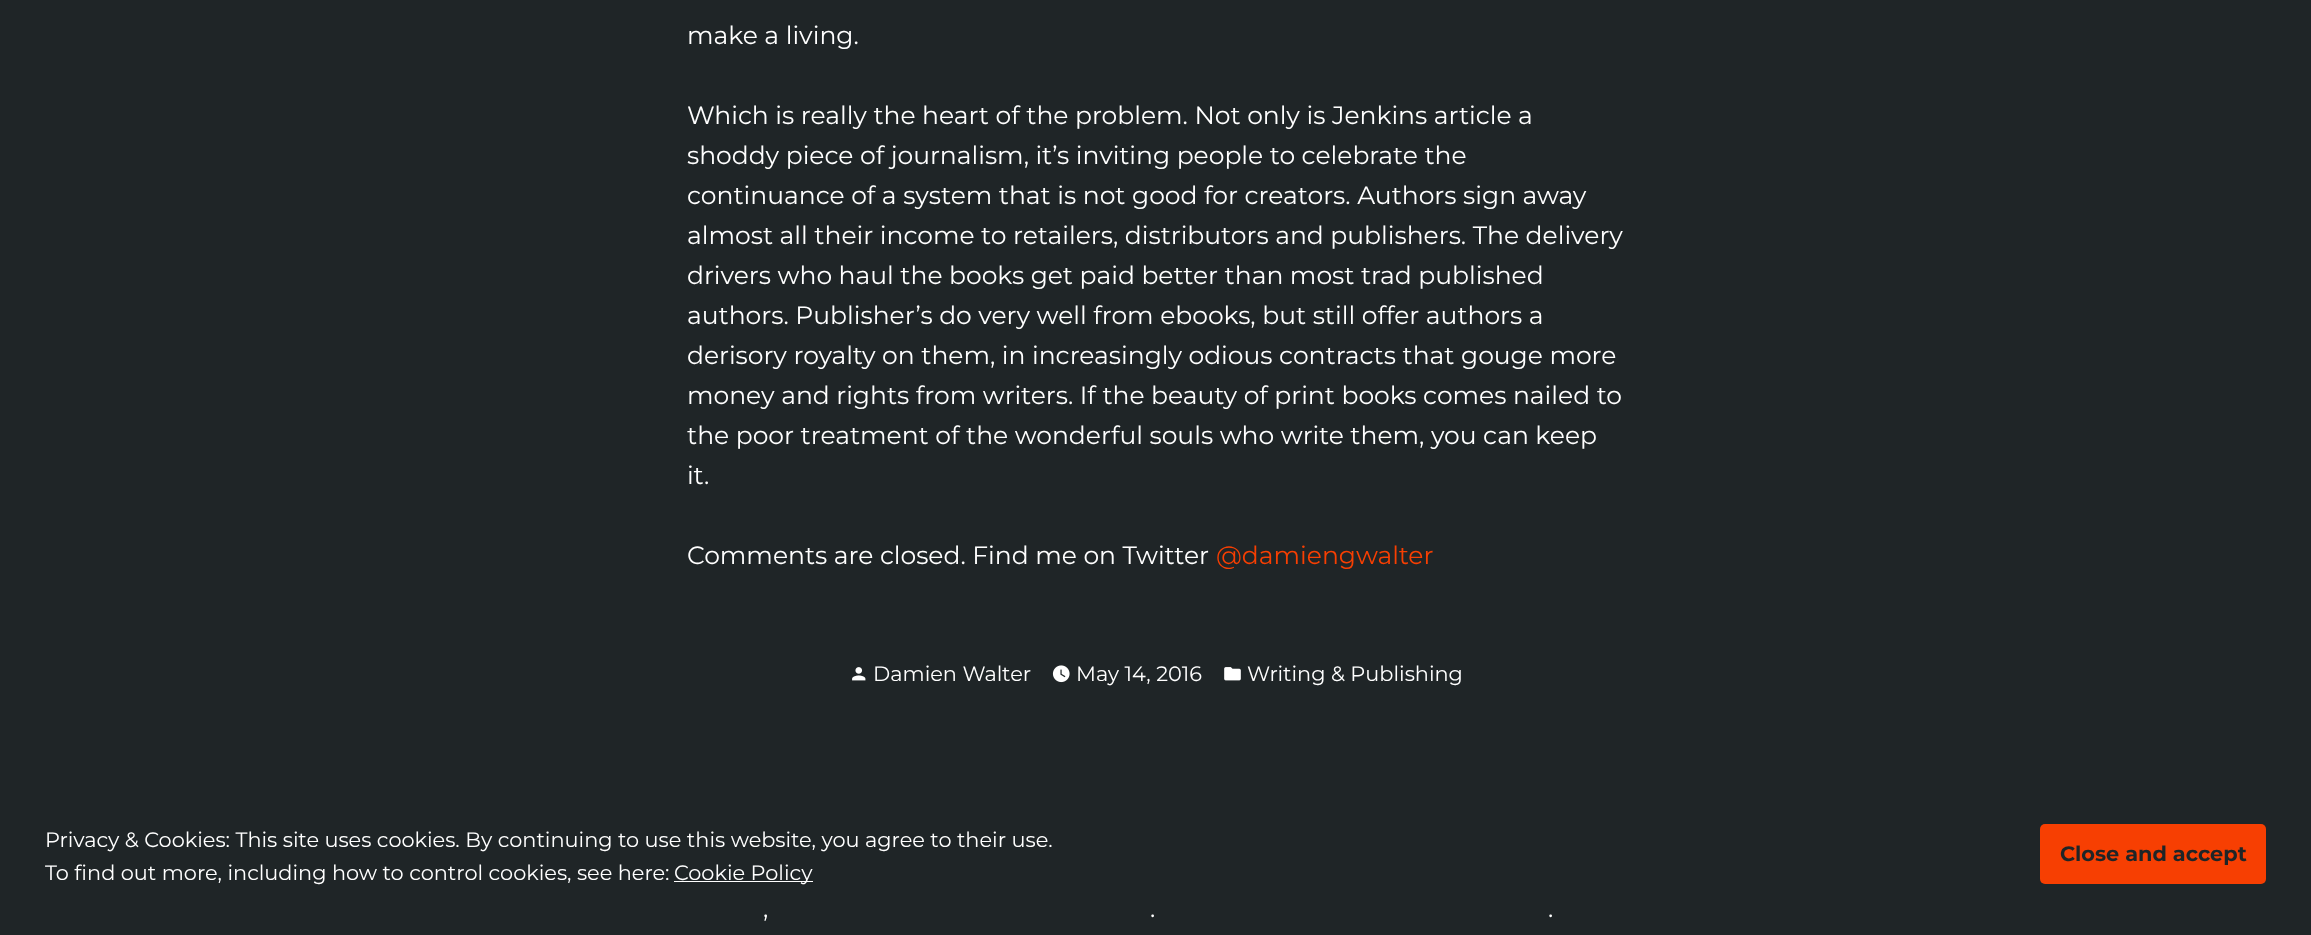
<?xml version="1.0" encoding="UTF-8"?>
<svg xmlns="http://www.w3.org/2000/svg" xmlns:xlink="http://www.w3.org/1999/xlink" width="2311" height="935">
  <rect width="100%" height="100%" fill="#1f2527" />
  <image x="852" y="667" width="14" height="14" xlink:href="image1.png" />
  <image x="1052" y="665" width="18" height="18" xlink:href="image2.png" />
  <image x="1224" y="667" width="17" height="14" xlink:href="image3.png" />
  <rect x="2040" y="824" width="226" height="60" rx="5" fill="#f73f02" />
  <rect x="674" y="881" width="139" height="1" fill="#ffffff" />
  <text x="687" y="44" style="font-family: Montserrat; font-size: 25px; fill: #ffffff">make a living.</text>
  <text x="687" y="124" style="font-family: Montserrat; font-size: 25px; fill: #ffffff">Which is really the heart of the problem. Not only is Jenkins article a</text>
  <text x="687" y="164" style="font-family: Montserrat; font-size: 25px; fill: #ffffff">shoddy piece of journalism, it’s inviting people to celebrate the</text>
  <text x="687" y="204" style="font-family: Montserrat; font-size: 25px; fill: #ffffff">continuance of a system that is not good for creators. Authors sign away</text>
  <text x="687" y="244" style="font-family: Montserrat; font-size: 25px; fill: #ffffff">almost all their income to retailers, distributors and publishers. The delivery</text>
  <text x="687" y="284" style="font-family: Montserrat; font-size: 25px; fill: #ffffff">drivers who haul the books get paid better than most trad published</text>
  <text x="687" y="324" style="font-family: Montserrat; font-size: 25px; fill: #ffffff">authors. Publisher’s do very well from ebooks, but still offer authors a</text>
  <text x="687" y="364" style="font-family: Montserrat; font-size: 25px; fill: #ffffff">derisory royalty on them, in increasingly odious contracts that gouge more</text>
  <text x="687" y="404" style="font-family: Montserrat; font-size: 25px; fill: #ffffff">money and rights from writers. If the beauty of print books comes nailed to</text>
  <text x="687" y="444" style="font-family: Montserrat; font-size: 25px; fill: #ffffff">the poor treatment of the wonderful souls who write them, you can keep</text>
  <text x="687" y="484" style="font-family: Montserrat; font-size: 25px; fill: #ffffff">it.</text>
  <text x="687" y="564" style="font-family: Montserrat; font-size: 25px; fill: #ffffff">Comments are closed. Find me on Twitter</text>
  <text x="1216" y="564" style="font-family: Montserrat; font-size: 25px; fill: #f73f02">@damiengwalter</text>
  <text x="873" y="681" style="font-family: Montserrat; font-size: 20.85px; fill: #ffffff">Damien Walter</text>
  <text x="1076" y="681" style="font-family: Montserrat; font-size: 20.85px; fill: #ffffff">May 14, 2016</text>
  <text x="1247" y="681" style="font-family: Montserrat; font-size: 20.85px; fill: #ffffff">Writing &amp; Publishing</text>
  <text x="763" y="917" style="font-family: Montserrat; font-size: 25px; fill: #ffffff">,</text>
  <text x="1150" y="917" style="font-family: Montserrat; font-size: 25px; fill: #ffffff">.</text>
  <text x="1548" y="917" style="font-family: Montserrat; font-size: 25px; fill: #ffffff">.</text>
  <text x="45" y="847" style="font-family: Montserrat; font-size: 20.85px; fill: #ffffff">Privacy &amp; Cookies: This site uses cookies. By continuing to use this website, you agree to their use.</text>
  <text x="2060" y="861" style="font-family: Montserrat; font-size: 20.85px; font-weight: bold; fill: #1f2527">Close and accept</text>
  <text x="45" y="880" style="font-family: Montserrat; font-size: 20.85px; fill: #ffffff">To find out more, including how to control cookies, see here:</text>
  <text x="674" y="880" style="font-family: Montserrat; font-size: 20.85px; fill: #ffffff">Cookie Policy</text>
</svg>
